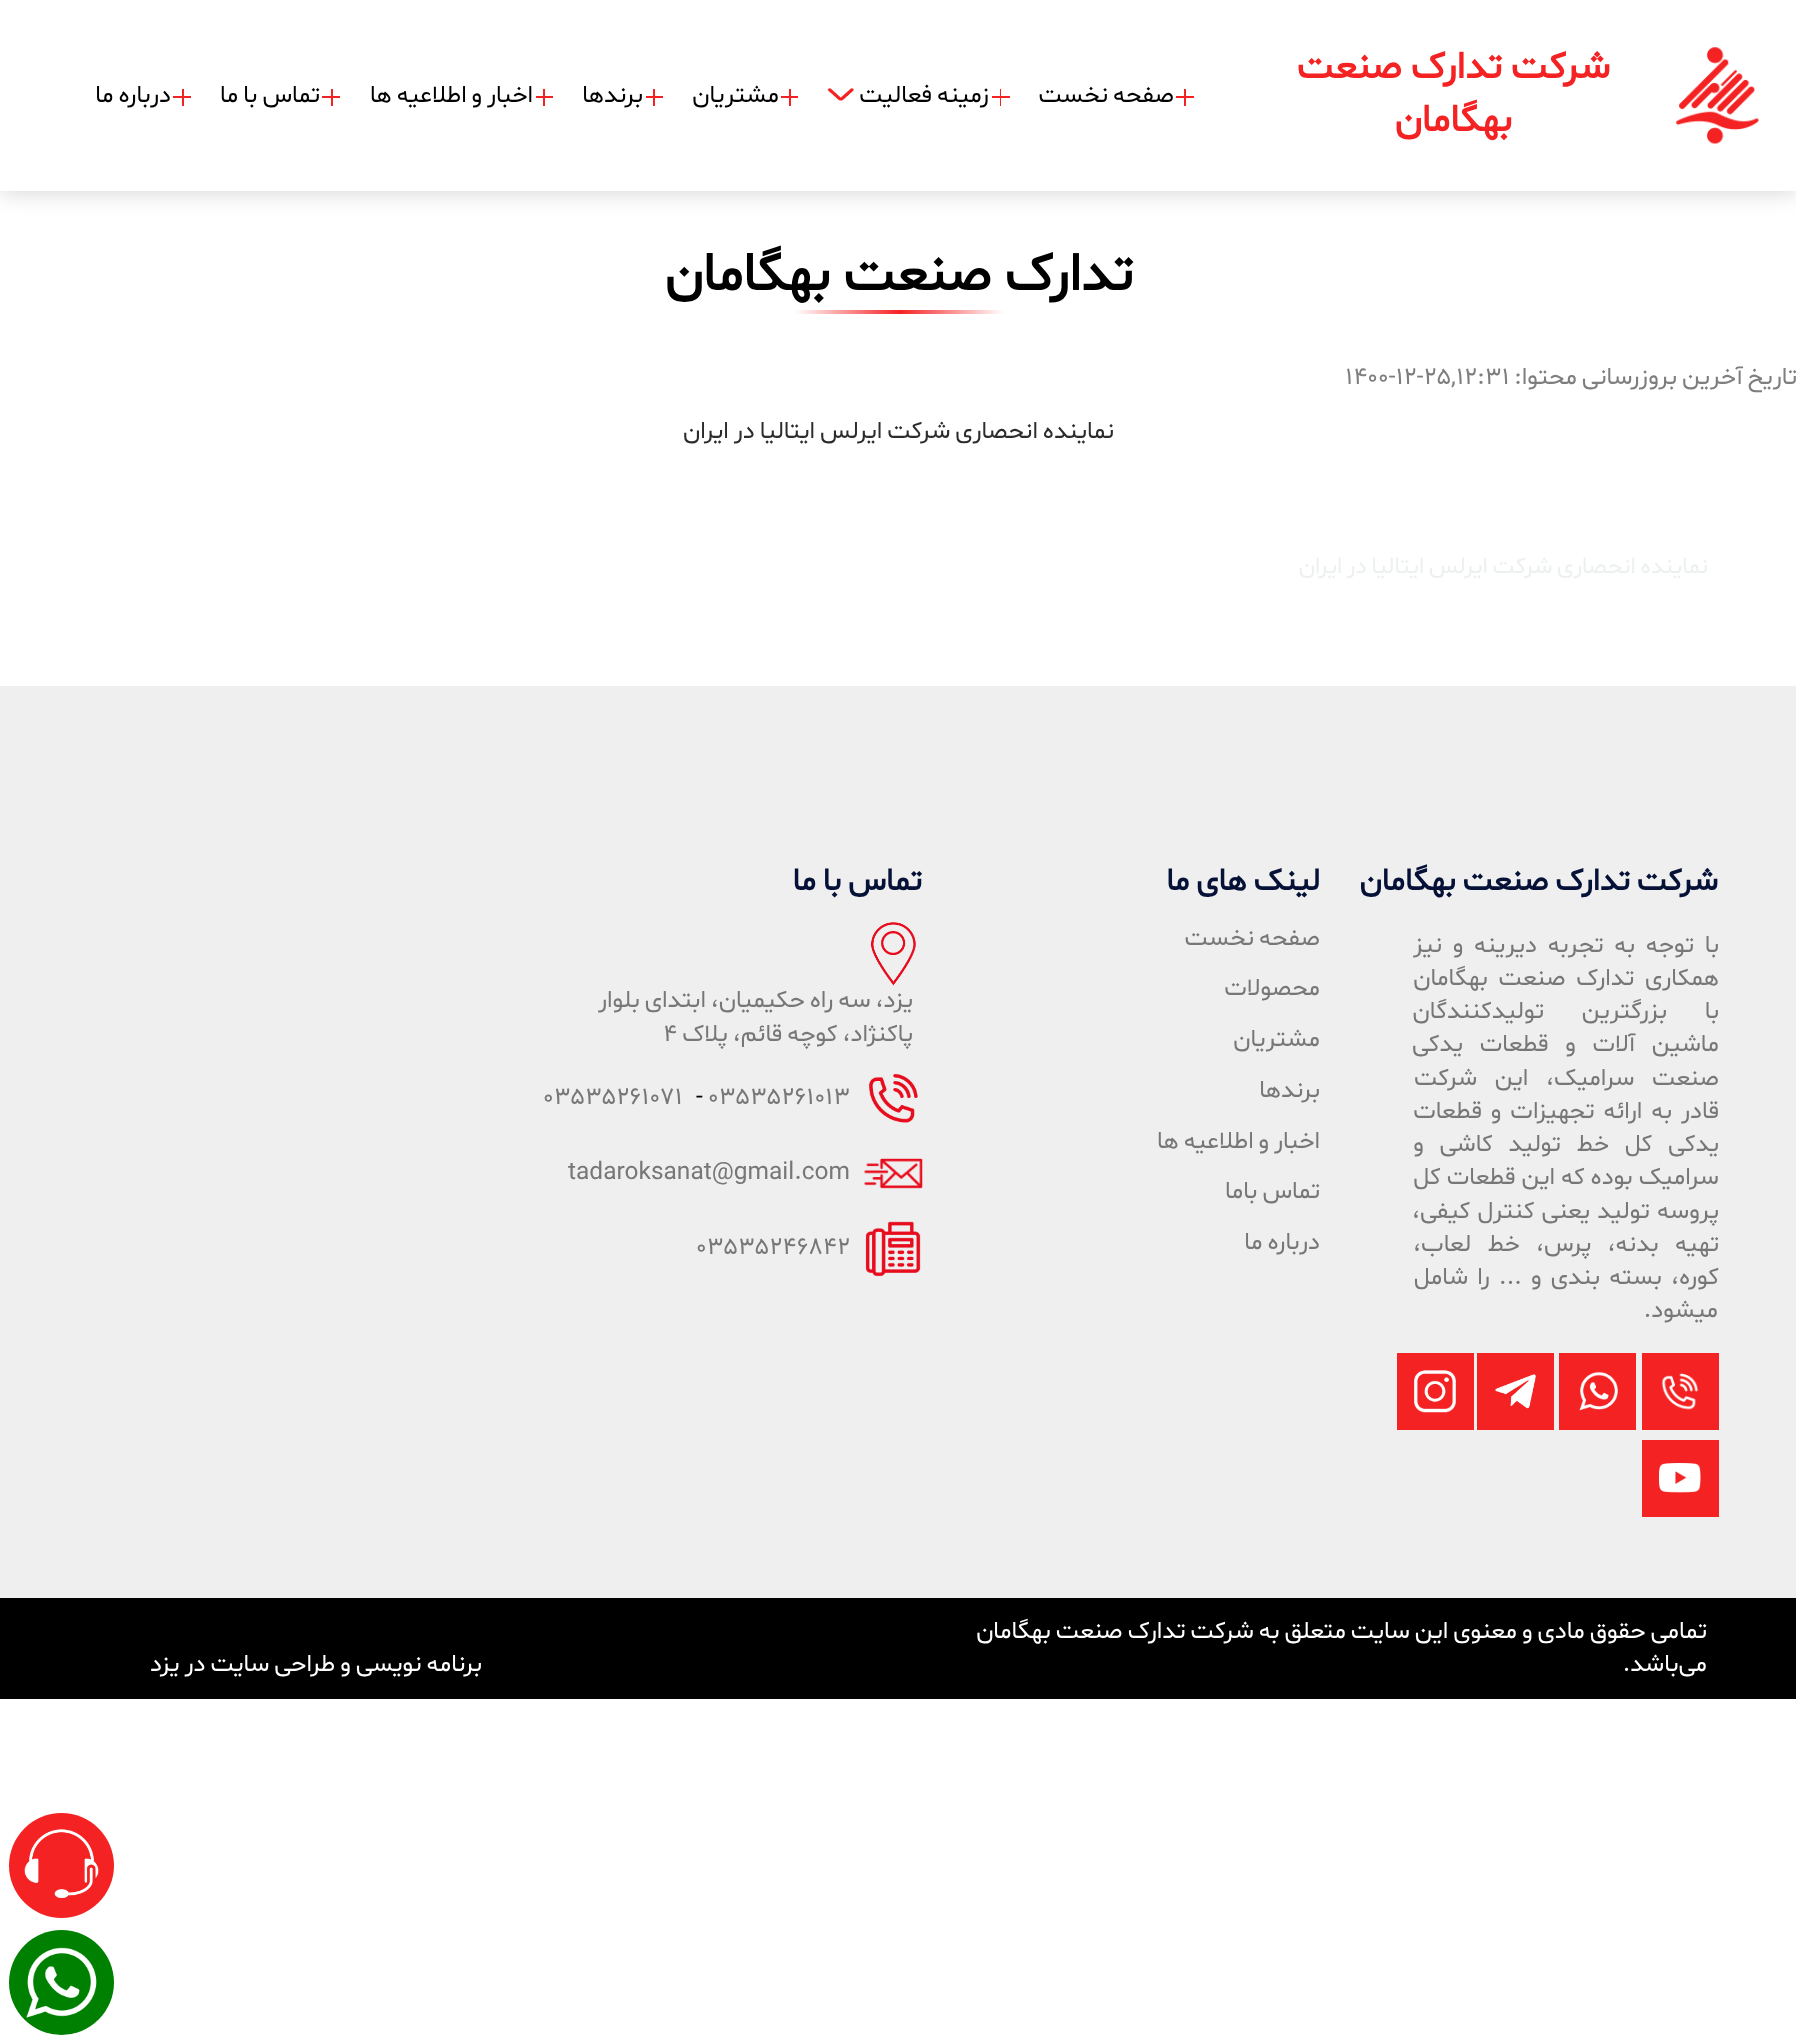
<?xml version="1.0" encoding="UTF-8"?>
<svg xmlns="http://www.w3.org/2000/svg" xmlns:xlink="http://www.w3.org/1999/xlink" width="1796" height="2039">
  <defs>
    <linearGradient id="g1" gradientUnits="userSpaceOnUse" x1="795" y1="312" x2="1004" y2="312"><stop offset="0" stop-color="#ffffff" /><stop offset="0.5" stop-color="#f42223" /><stop offset="1" stop-color="#ffffff" /></linearGradient>
  </defs>
  <rect width="100%" height="100%" fill="#ffffff" />
  <rect width="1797" height="191" fill="#000000" fill-opacity="0.18" filter="blur(11.5px)" />
  <rect width="1796" height="191" fill="#ffffff" />
  <image x="1676" y="47" width="83" height="97" xlink:href="image1.png" />
  <rect x="1176" y="96" width="18" height="2" fill="#f42223" />
  <rect x="1184" y="89" width="2" height="17" fill="#f42223" />
  <rect x="992" y="96" width="18" height="2" fill="#f42223" />
  <rect x="1000" y="89" width="1" height="17" fill="#f42223" />
  <image x="827" y="88" width="27" height="13" xlink:href="image2.png" />
  <rect x="781" y="96" width="17" height="2" fill="#f42223" />
  <rect x="789" y="89" width="2" height="17" fill="#f42223" />
  <rect x="646" y="96" width="17" height="2" fill="#f42223" />
  <rect x="653" y="89" width="2" height="17" fill="#f42223" />
  <rect x="173" y="96" width="18" height="2" fill="#f42223" />
  <rect x="182" y="89" width="2" height="17" fill="#f42223" />
  <rect x="796" y="310" width="209" height="4" fill="url(#g1)" />
  <rect y="686" width="1796" height="912" fill="#efefef" />
  <rect x="1642" y="1353" width="77" height="77" fill="#f42223" />
  <rect x="1559" y="1353" width="77" height="77" fill="#f42223" />
  <rect x="1477" y="1353" width="77" height="77" fill="#f42223" />
  <rect x="1397" y="1353" width="77" height="77" fill="#f42223" />
  <image x="1661" y="1373" width="38" height="37" xlink:href="image3.png" />
  <image x="1579" y="1371" width="39" height="40" xlink:href="image4.png" />
  <image x="1495" y="1374" width="41" height="35" xlink:href="image5.png" />
  <image x="1414" y="1370" width="42" height="43" xlink:href="image6.png" />
  <rect x="1642" y="1440" width="77" height="77" fill="#f42223" />
  <image x="1659" y="1463" width="42" height="30" xlink:href="image7.png" />
  <image x="870" y="922" width="46" height="64" xlink:href="image8.png" />
  <image x="869" y="1073" width="49" height="50" xlink:href="image9.png" />
  <image x="864" y="1158" width="59" height="31" xlink:href="image10.png" />
  <image x="865" y="1221" width="56" height="56" xlink:href="image11.png" />
  <rect y="1598" width="1796" height="101" fill="#000000" />
  <circle cx="61.5" cy="1865.5" r="52.5" fill="#f42223" />
  <image x="24" y="1829" width="75" height="69" xlink:href="image12.png" />
  <circle cx="61.5" cy="1982.5" r="52.5" fill="#008000" />
  <image x="26" y="1947" width="71" height="71" xlink:href="image13.png" />
  <text x="1610" y="78" word-spacing="-1.75" style="font-family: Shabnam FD; font-size: 38.5px; font-weight: bold; direction: rtl; fill: #f42223">شرکت تدارک صنعت</text>
  <text x="1512" y="131" style="font-family: Shabnam FD; font-size: 38.5px; font-weight: bold; direction: rtl; fill: #f42223">بهگامان</text>
  <text x="1174" y="102" word-spacing="-1.75" style="font-family: Shabnam FD; font-size: 24.5px; direction: rtl; fill: #000000">صفحه نخست</text>
  <text x="989" y="102" word-spacing="-1.75" style="font-family: Shabnam FD; font-size: 24.5px; direction: rtl; fill: #000000">زمینه فعالیت</text>
  <text x="779" y="102" style="font-family: Shabnam FD; font-size: 24.5px; direction: rtl; fill: #000000">مشتریان</text>
  <text x="643" y="102" style="font-family: Shabnam FD; font-size: 24.5px; direction: rtl; fill: #000000">برندها</text>
  <text x="533" y="102" word-spacing="-1.75" style="font-family: Shabnam FD; font-size: 24.5px; direction: rtl; fill: #000000">اخبار و اطلاعیه ها</text>
  <rect x="536" y="96" width="17" height="2" fill="#f42223" />
  <rect x="543" y="89" width="2" height="17" fill="#f42223" />
  <text x="320" y="102" word-spacing="-1.75" style="font-family: Shabnam FD; font-size: 24.5px; direction: rtl; fill: #000000">تماس با ما</text>
  <rect x="322" y="96" width="18" height="2" fill="#f42223" />
  <rect x="331" y="89" width="2" height="17" fill="#f42223" />
  <text x="171" y="102" word-spacing="-1.75" style="font-family: Shabnam FD; font-size: 24.5px; direction: rtl; fill: #000000">درباره ما</text>
  <text x="1133" y="290" word-spacing="-1.75" style="font-family: Shabnam FD; font-size: 54.25px; font-weight: bold; direction: rtl; fill: #000000">تدارک صنعت بهگامان</text>
  <text x="1797" y="384" word-spacing="-1.75" style="font-family: Shabnam FD; font-size: 24.5px; direction: rtl; fill: #7e7e7e">تاریخ آخرین بروزرسانی محتوا:</text>
  <text x="1345" y="384" style="font-family: Shabnam FD; font-size: 24.5px; fill: #7e7e7e">1400-12-25,12:31</text>
  <text x="1114" y="438" word-spacing="-1.75" style="font-family: Shabnam FD; font-size: 24.5px; direction: rtl; fill: #2c2c2c">نماینده انحصاری شرکت ایرلس ایتالیا در ایران</text>
  <text x="1708" y="573" word-spacing="-1.75" style="font-family: Shabnam FD; font-size: 23.3px; direction: rtl; fill: #ecf0f1">نماینده انحصاری شرکت ایرلس ایتالیا در ایران</text>
  <text x="1718" y="890" word-spacing="-1.75" style="font-family: Shabnam FD; font-size: 31.5px; font-weight: bold; direction: rtl; fill: #051136">شرکت تدارک صنعت بهگامان</text>
  <text x="1719" y="952" word-spacing="4" style="font-family: Shabnam FD; font-size: 24.5px; direction: rtl; fill: #777777">با توجه به تجربه دیرینه و نیز</text>
  <text x="1719" y="985" word-spacing="4" style="font-family: Shabnam FD; font-size: 24.5px; direction: rtl; fill: #777777">همکاری تدارک صنعت بهگامان</text>
  <text x="1719" y="1018" word-spacing="31" style="font-family: Shabnam FD; font-size: 24.5px; direction: rtl; fill: #777777">با بزرگترین تولیدکنندگان</text>
  <text x="1719" y="1051" word-spacing="10" style="font-family: Shabnam FD; font-size: 24.5px; direction: rtl; fill: #777777">ماشین آلات و قطعات یدکی</text>
  <text x="1719" y="1085" word-spacing="11" style="font-family: Shabnam FD; font-size: 24.5px; direction: rtl; fill: #777777">صنعت سرامیک، این شرکت</text>
  <text x="1719" y="1118" word-spacing="2.25" style="font-family: Shabnam FD; font-size: 24.5px; direction: rtl; fill: #777777">قادر به ارائه تجهیزات و قطعات</text>
  <text x="1719" y="1151" word-spacing="9" style="font-family: Shabnam FD; font-size: 24.5px; direction: rtl; fill: #777777">یدکی کل خط تولید کاشی و</text>
  <text x="1719" y="1184" word-spacing="-0.75" style="font-family: Shabnam FD; font-size: 24.5px; direction: rtl; fill: #777777">سرامیک بوده که این قطعات کل</text>
  <text x="1719" y="1218" word-spacing="0.5" style="font-family: Shabnam FD; font-size: 24.5px; direction: rtl; fill: #777777">پروسه تولید یعنی کنترل کیفی،</text>
  <text x="1719" y="1251" word-spacing="9.5" style="font-family: Shabnam FD; font-size: 24.5px; direction: rtl; fill: #777777">تهیه بدنه، پرس، خط لعاب،</text>
  <text x="1719" y="1284" word-spacing="2.5" style="font-family: Shabnam FD; font-size: 24.5px; direction: rtl; fill: #777777">کوره، بسته بندی و ... را شامل</text>
  <text x="1718" y="1317" style="font-family: Shabnam FD; font-size: 24.5px; direction: rtl; fill: #777777">میشود.</text>
  <text x="1320" y="890" word-spacing="-1.75" style="font-family: Shabnam FD; font-size: 31.5px; font-weight: bold; direction: rtl; fill: #051136">لینک های ما</text>
  <text x="1320" y="945" word-spacing="-1.75" style="font-family: Shabnam FD; font-size: 24.5px; direction: rtl; fill: #777777">صفحه نخست</text>
  <text x="1320" y="995" style="font-family: Shabnam FD; font-size: 24.5px; direction: rtl; fill: #777777">محصولات</text>
  <text x="1320" y="1046" style="font-family: Shabnam FD; font-size: 24.5px; direction: rtl; fill: #777777">مشتریان</text>
  <text x="1320" y="1097" style="font-family: Shabnam FD; font-size: 24.5px; direction: rtl; fill: #777777">برندها</text>
  <text x="1320" y="1148" word-spacing="-1.75" style="font-family: Shabnam FD; font-size: 24.5px; direction: rtl; fill: #777777">اخبار و اطلاعیه ها</text>
  <text x="1320" y="1198" word-spacing="-1.75" style="font-family: Shabnam FD; font-size: 24.5px; direction: rtl; fill: #777777">تماس باما</text>
  <text x="1320" y="1249" word-spacing="-1.75" style="font-family: Shabnam FD; font-size: 24.5px; direction: rtl; fill: #777777">درباره ما</text>
  <text x="922" y="890" word-spacing="-1.75" style="font-family: Shabnam FD; font-size: 31.5px; font-weight: bold; direction: rtl; fill: #051136">تماس با ما</text>
  <text x="913" y="1007" word-spacing="-1.75" style="font-family: Shabnam FD; font-size: 24.5px; direction: rtl; fill: #777777">یزد، سه راه حکیمیان، ابتدای بلوار</text>
  <text x="913" y="1041" word-spacing="-1.75" style="font-family: Shabnam FD; font-size: 24.5px; direction: rtl; fill: #777777">پاکنژاد، کوچه قائم، پلاک</text>
  <text x="663" y="1041" style="font-family: Shabnam FD; font-size: 24.5px; fill: #777777">4</text>
  <text x="708" y="1104" style="font-family: Shabnam FD; font-size: 24.5px; fill: #777777">03535261013</text>
  <text x="696" y="1104" style="font-family: Shabnam FD; font-size: 24.5px; fill: #000000">-</text>
  <text x="543" y="1104" style="font-family: Shabnam FD; font-size: 24.5px; fill: #777777">03535261071</text>
  <text x="568" y="1179" style="font-family: Shabnam FD; font-size: 24.5px; fill: #777777">tadaroksanat@gmail.com</text>
  <text x="696" y="1254" style="font-family: Shabnam FD; font-size: 24.5px; fill: #777777">03535246842</text>
  <text x="1707" y="1638" word-spacing="-1.75" style="font-family: Shabnam FD; font-size: 24.5px; direction: rtl; fill: #ffffff">تمامی حقوق مادی و معنوی این سایت متعلق به شرکت تدارک صنعت بهگامان</text>
  <text x="1707" y="1671" style="font-family: Shabnam FD; font-size: 24.5px; direction: rtl; fill: #ffffff">می‌باشد.</text>
  <text x="482" y="1671" word-spacing="-1.75" style="font-family: Shabnam FD; font-size: 24.5px; direction: rtl; fill: #ffffff">برنامه نویسی و طراحی سایت در یزد</text>
</svg>
